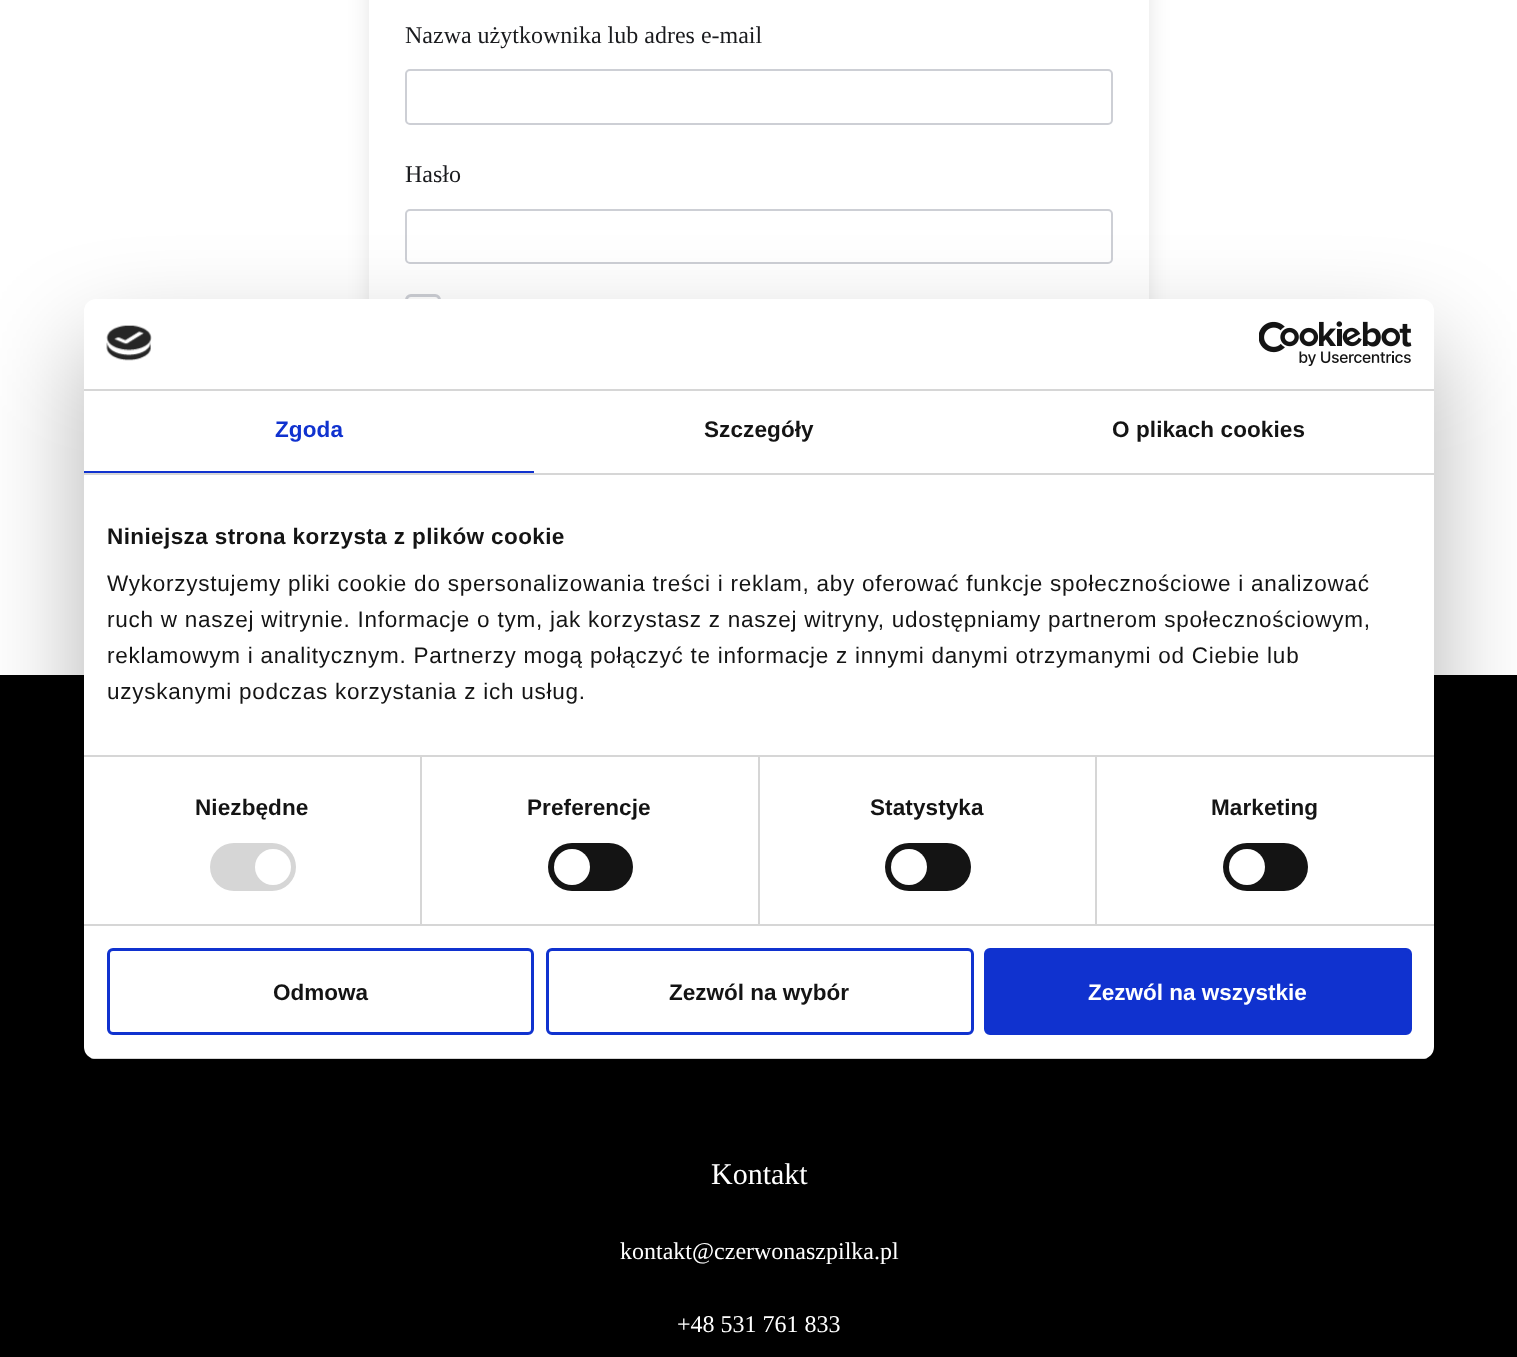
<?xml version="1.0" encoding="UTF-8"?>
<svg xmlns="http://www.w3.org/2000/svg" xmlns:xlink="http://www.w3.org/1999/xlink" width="1517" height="1357">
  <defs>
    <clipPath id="clip1"><path d="M 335 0 h 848 v 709 h -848 z m 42 -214 h 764 c 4.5 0 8 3.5 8 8 v 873 c 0 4.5 -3.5 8 -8 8 h -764 c -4.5 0 -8 -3.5 -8 -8 v -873 c 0 -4.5 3.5 -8 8 -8 z" clip-rule="evenodd" /></clipPath>
    <clipPath id="clip2"><rect x="84" y="299" width="1350" height="760" rx="12" /></clipPath>
  </defs>
  <rect width="100%" height="100%" fill="#ffffff" />
  <g clip-path="url(#clip1)">
    <rect x="369" y="-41" width="780" height="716" rx="8" fill="#000000" fill-opacity="0.1" filter="blur(11px)" />
  </g>
  <rect x="406" y="70" width="706" height="54" rx="4" fill="none" stroke="#cdcfd5" stroke-width="2" />
  <rect x="406" y="210" width="706" height="53" rx="4" fill="none" stroke="#cdcfd5" stroke-width="2" />
  <rect x="406.5" y="295.5" width="33" height="33" rx="4.5" fill="none" stroke="#cdcfd5" stroke-width="3" />
  <rect y="675" width="1517" height="682" fill="#000000" />
  <rect x="84" y="347" width="1350" height="760" rx="12" fill="#000000" fill-opacity="0.3" filter="blur(51px)" />
  <rect x="84" y="299" width="1350" height="760" rx="12" fill="#ffffff" />
  <rect x="84" y="389" width="1350" height="2" fill="#d6d6d6" />
  <image x="106" y="325" width="46" height="36" xlink:href="image1.png" />
  <image x="1259" y="321" width="153" height="45" xlink:href="image2.png" />
  <rect x="84" y="473" width="1350" height="2" fill="#d6d6d6" />
  <rect x="84" y="471" width="450" height="2" fill="#1032cf" />
  <rect x="420" y="756" width="2" height="168" fill="#d6d6d6" />
  <rect x="758" y="756" width="2" height="168" fill="#d6d6d6" />
  <rect x="1095" y="756" width="2" height="168" fill="#d6d6d6" />
  <rect x="84" y="755" width="1350" height="2" fill="#d6d6d6" />
  <rect x="84" y="924" width="1350" height="2" fill="#d6d6d6" />
  <rect x="210" y="843" width="86" height="48" rx="24" fill="#d6d6d6" />
  <circle cx="273" cy="867" r="18" fill="#ffffff" />
  <rect x="548" y="843" width="85" height="48" rx="24" fill="#141414" />
  <circle cx="572" cy="867" r="18" fill="#ffffff" />
  <rect x="885" y="843" width="86" height="48" rx="24" fill="#141414" />
  <circle cx="909" cy="867" r="18" fill="#ffffff" />
  <rect x="1223" y="843" width="85" height="48" rx="24" fill="#141414" />
  <circle cx="1247" cy="867" r="18" fill="#ffffff" />
  <g clip-path="url(#clip2)">
    <rect x="84" y="1058" width="1350" height="1" fill="#d6d6d6" />
  </g>
  <rect x="108.5" y="949.5" width="424" height="84" rx="4.5" fill="none" stroke="#1032cf" stroke-width="3" />
  <rect x="547.5" y="949.5" width="425" height="84" rx="4.5" fill="none" stroke="#1032cf" stroke-width="3" />
  <rect x="985.5" y="949.5" width="425" height="84" rx="4.5" fill="#1032cf" stroke="#1032cf" stroke-width="3" />
  <text x="405" y="43" style="font-family: Liberation Serif; font-size: 24px; fill: #1a1b1e">Nazwa użytkownika lub adres e-mail</text>
  <text x="405" y="182" style="font-family: Liberation Serif; font-size: 24px; fill: #1a1b1e">Hasło</text>
  <text x="711" y="1184" style="font-family: Liberation Serif; font-size: 30px; fill: #ffffff">Kontakt</text>
  <text x="620" y="1259" style="font-family: Liberation Serif; font-size: 24px; fill: #ffffff">kontakt@czerwonaszpilka.pl</text>
  <text x="677" y="1332" style="font-family: Liberation Serif; font-size: 24px; fill: #ffffff">+48 531 761 833</text>
  <text x="275" y="437" style="font-family: Liberation Sans; font-size: 22.5px; font-weight: bold; letter-spacing: 0.1px; fill: #1032cf">Zgoda</text>
  <text x="704" y="437" style="font-family: Liberation Sans; font-size: 22.5px; font-weight: bold; letter-spacing: 0.1px; fill: #141414">Szczegóły</text>
  <text x="1112" y="437" style="font-family: Liberation Sans; font-size: 22.5px; font-weight: bold; letter-spacing: 0.1px; fill: #141414">O plikach cookies</text>
  <text x="107" y="544" style="font-family: Liberation Sans; font-size: 22.5px; font-weight: bold; letter-spacing: 0.4px; fill: #141414">Niniejsza strona korzysta z plików cookie</text>
  <text x="107" y="591" style="font-family: Liberation Sans; font-size: 22.5px; letter-spacing: 0.75px; fill: #141414">Wykorzystujemy pliki cookie do spersonalizowania treści i reklam, aby oferować funkcje społecznościowe i analizować</text>
  <text x="107" y="627" style="font-family: Liberation Sans; font-size: 22.5px; letter-spacing: 0.75px; fill: #141414">ruch w naszej witrynie. Informacje o tym, jak korzystasz z naszej witryny, udostępniamy partnerom społecznościowym,</text>
  <text x="107" y="663" style="font-family: Liberation Sans; font-size: 22.5px; letter-spacing: 0.75px; fill: #141414">reklamowym i analitycznym. Partnerzy mogą połączyć te informacje z innymi danymi otrzymanymi od Ciebie lub</text>
  <text x="107" y="699" style="font-family: Liberation Sans; font-size: 22.5px; letter-spacing: 0.75px; fill: #141414">uzyskanymi podczas korzystania z ich usług.</text>
  <text x="195" y="815" style="font-family: Liberation Sans; font-size: 22.5px; font-weight: bold; letter-spacing: 0.1px; fill: #141414">Niezbędne</text>
  <text x="527" y="815" style="font-family: Liberation Sans; font-size: 22.5px; font-weight: bold; letter-spacing: 0.1px; fill: #141414">Preferencje</text>
  <text x="870" y="815" style="font-family: Liberation Sans; font-size: 22.5px; font-weight: bold; letter-spacing: 0.1px; fill: #141414">Statystyka</text>
  <text x="1211" y="815" style="font-family: Liberation Sans; font-size: 22.5px; font-weight: bold; letter-spacing: 0.1px; fill: #141414">Marketing</text>
  <text x="273" y="1000" style="font-family: Liberation Sans; font-size: 22.5px; font-weight: bold; fill: #141414">Odmowa</text>
  <text x="669" y="1000" style="font-family: Liberation Sans; font-size: 22.5px; font-weight: bold; fill: #141414">Zezwól na wybór</text>
  <text x="1088" y="1000" style="font-family: Liberation Sans; font-size: 22.5px; font-weight: bold; fill: #ffffff">Zezwól na wszystkie</text>
</svg>
